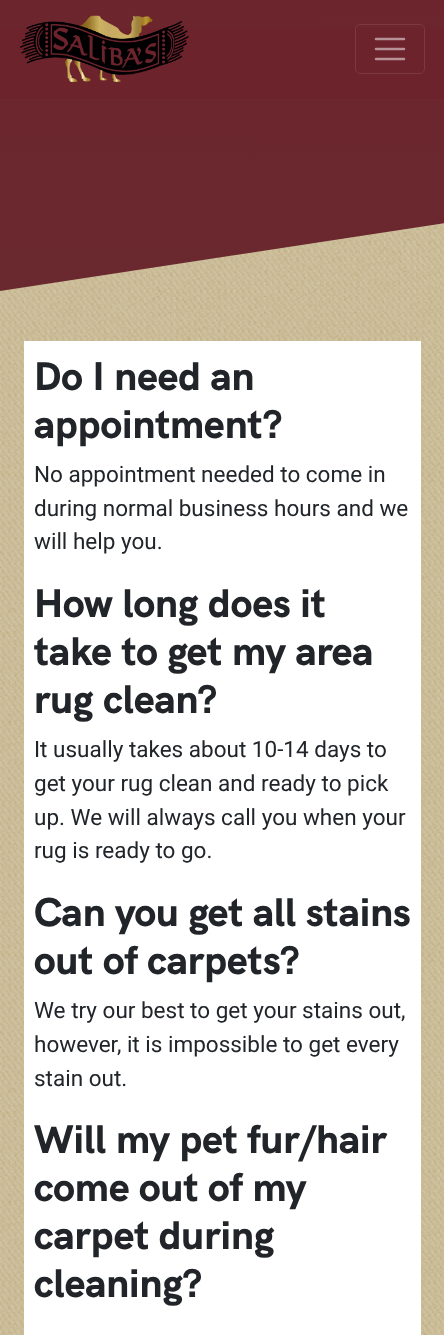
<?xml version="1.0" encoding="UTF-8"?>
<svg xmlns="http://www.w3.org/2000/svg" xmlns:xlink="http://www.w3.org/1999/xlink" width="444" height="1335">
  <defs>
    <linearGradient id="g1" gradientUnits="userSpaceOnUse" x1="222" y1="-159" x2="223" y2="291"><stop offset="0" stop-color="#6d232b" /><stop offset="1" stop-color="#6a292f" /></linearGradient>
  </defs>
  <rect width="100%" height="100%" fill="#ffffff" />
  <image x="0" y="223" width="444" height="1112" xlink:href="image1.png" />
  <path d="M 0 -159 v 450 l 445 -68 v -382 z" fill="url(#g1)" />
  <rect y="28" width="444" height="71" fill="#6d232b" />
  <rect y="99" width="444" height="1" fill="#6e292f" />
  <image x="20" y="15" width="169" height="67" xlink:href="image2.png" />
  <rect x="355.5" y="24.5" width="69" height="49" rx="4.5" fill="none" stroke="#7c3940" />
  <path d="M 376 39 h 28 m -28 10 h 28 m -28 10 h 28" fill="none" stroke="#b69195" stroke-width="2.5" stroke-linecap="round" />
  <rect x="24" y="341" width="397" height="994" fill="#ffffff" />
  <text x="34" y="390" style="font-family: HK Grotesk; font-size: 40px; font-weight: 800; fill: #212529">Do I need an</text>
  <text x="34" y="438" style="font-family: HK Grotesk; font-size: 40px; font-weight: 800; fill: #212529">appointment?</text>
  <text x="34" y="482" style="font-family: Roboto; font-size: 22.5px; fill: #212529">No appointment needed to come in</text>
  <text x="34" y="516" style="font-family: Roboto; font-size: 22.5px; fill: #212529">during normal business hours and we</text>
  <text x="34" y="549" style="font-family: Roboto; font-size: 22.5px; fill: #212529">will help you.</text>
  <text x="34" y="617" style="font-family: HK Grotesk; font-size: 40px; font-weight: 800; fill: #212529">How long does it</text>
  <text x="34" y="665" style="font-family: HK Grotesk; font-size: 40px; font-weight: 800; fill: #212529">take to get my area</text>
  <text x="34" y="713" style="font-family: HK Grotesk; font-size: 40px; font-weight: 800; fill: #212529">rug clean?</text>
  <text x="34" y="757" style="font-family: Roboto; font-size: 22.5px; fill: #212529">It usually takes about 10-14 days to</text>
  <text x="34" y="791" style="font-family: Roboto; font-size: 22.5px; fill: #212529">get your rug clean and ready to pick</text>
  <text x="34" y="825" style="font-family: Roboto; font-size: 22.5px; fill: #212529">up. We will always call you when your</text>
  <text x="34" y="858" style="font-family: Roboto; font-size: 22.5px; fill: #212529">rug is ready to go.</text>
  <text x="34" y="926" style="font-family: HK Grotesk; font-size: 40px; font-weight: 800; fill: #212529">Can you get all stains</text>
  <text x="34" y="974" style="font-family: HK Grotesk; font-size: 40px; font-weight: 800; fill: #212529">out of carpets?</text>
  <text x="34" y="1018" style="font-family: Roboto; font-size: 22.5px; fill: #212529">We try our best to get your stains out,</text>
  <text x="34" y="1052" style="font-family: Roboto; font-size: 22.5px; fill: #212529">however, it is impossible to get every</text>
  <text x="34" y="1086" style="font-family: Roboto; font-size: 22.5px; fill: #212529">stain out.</text>
  <text x="34" y="1153" style="font-family: HK Grotesk; font-size: 40px; font-weight: 800; fill: #212529">Will my pet fur/hair</text>
  <text x="34" y="1201" style="font-family: HK Grotesk; font-size: 40px; font-weight: 800; fill: #212529">come out of my</text>
  <text x="34" y="1249" style="font-family: HK Grotesk; font-size: 40px; font-weight: 800; fill: #212529">carpet during</text>
  <text x="34" y="1297" style="font-family: HK Grotesk; font-size: 40px; font-weight: 800; fill: #212529">cleaning?</text>
</svg>
